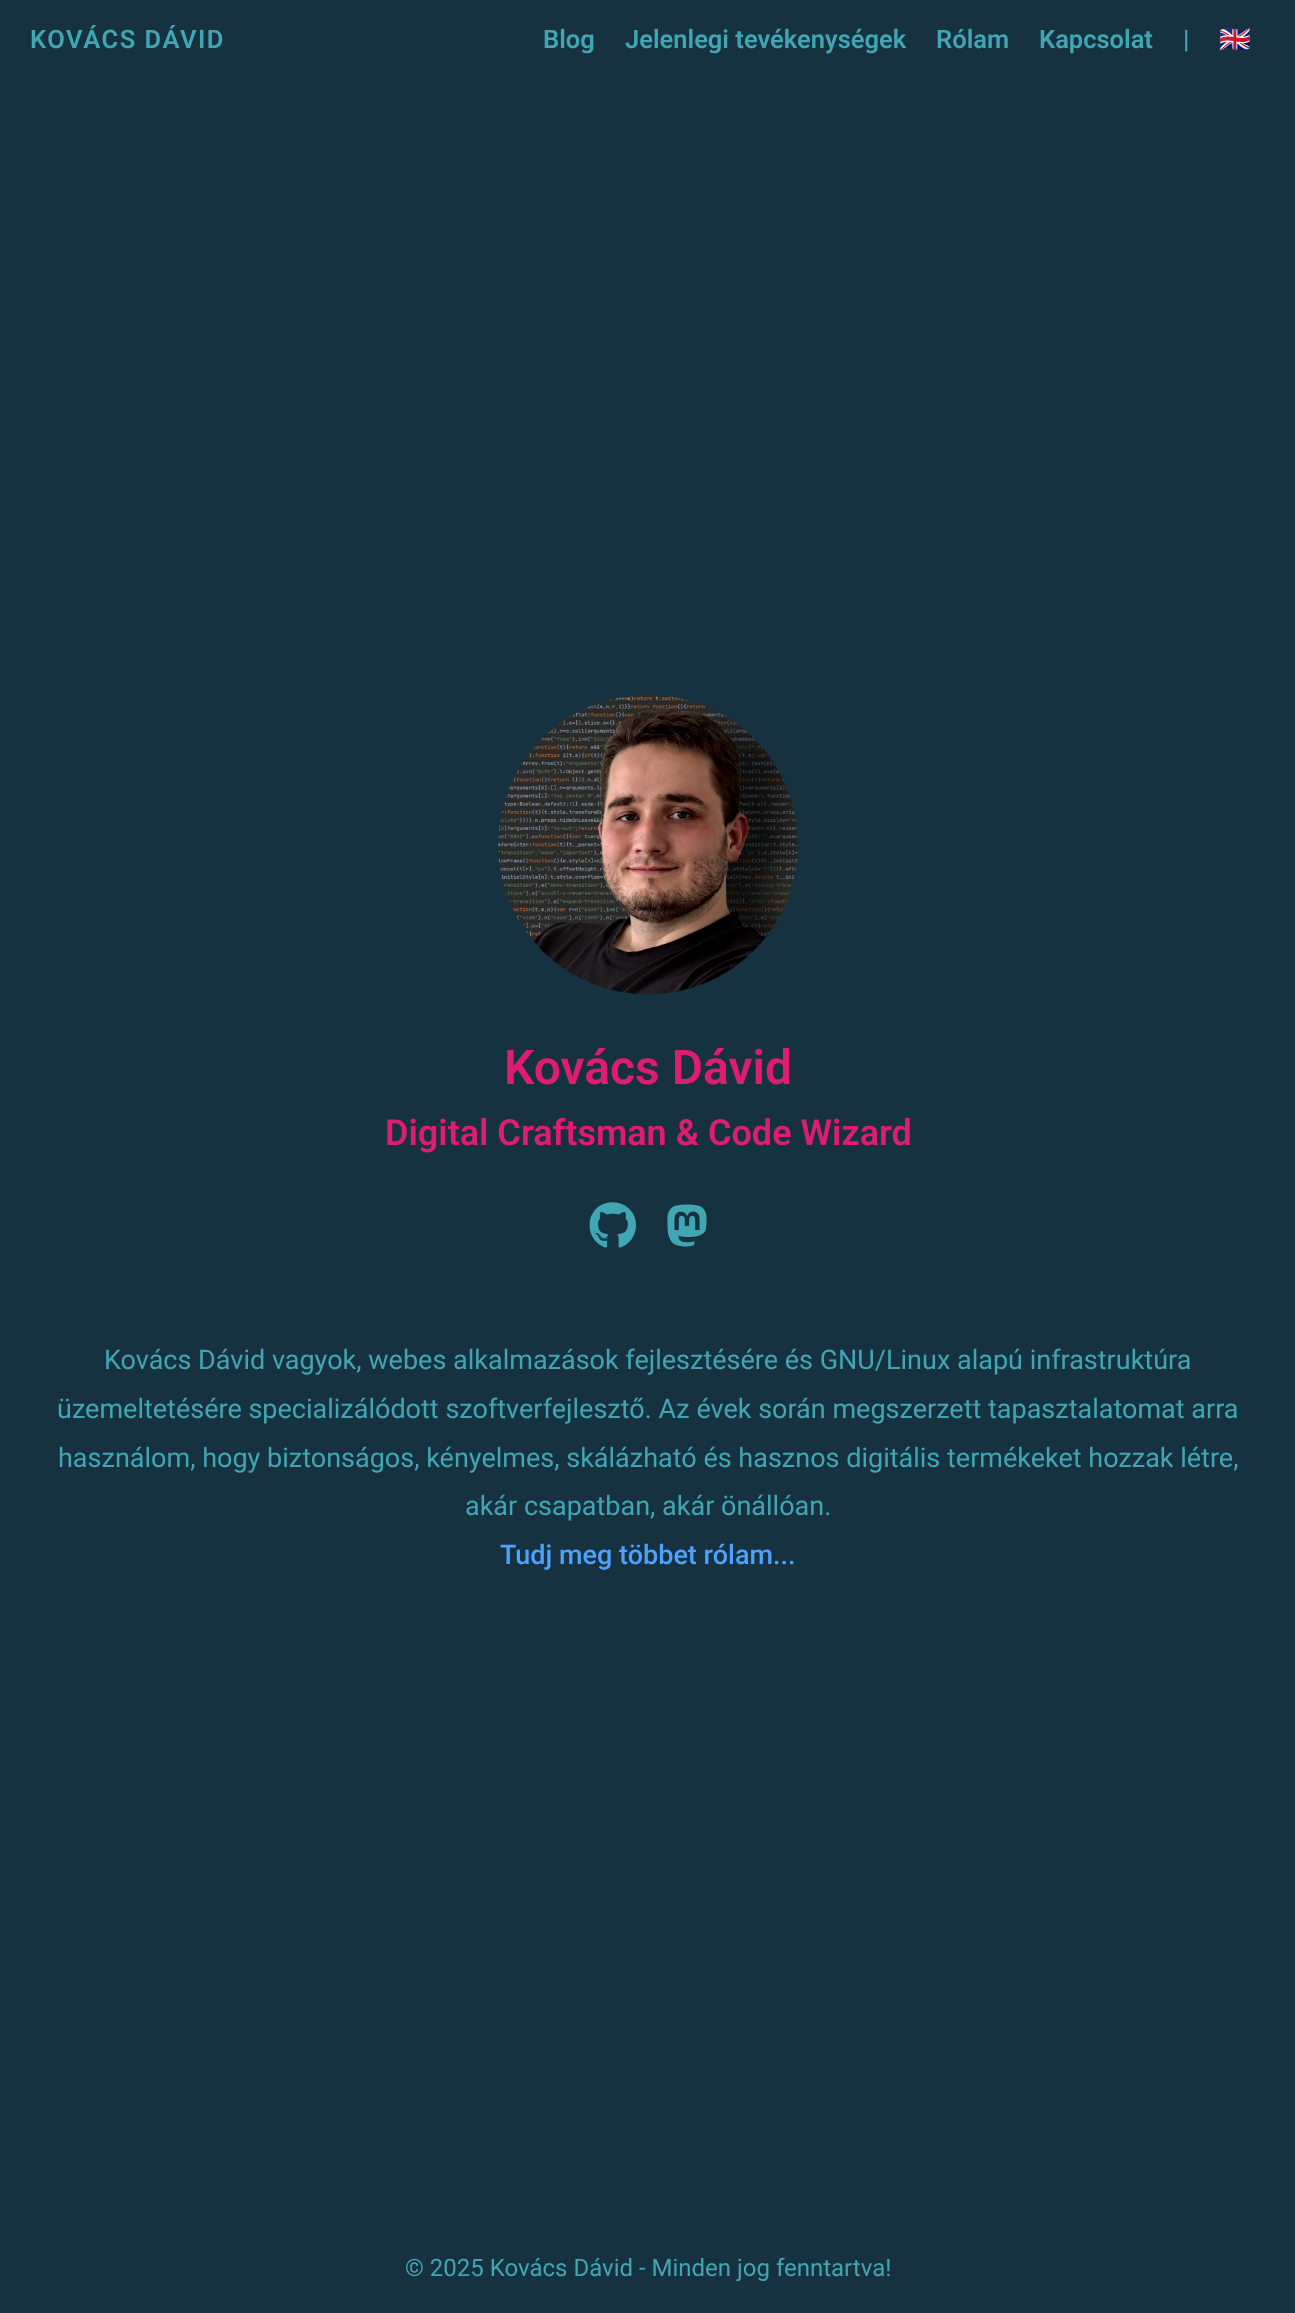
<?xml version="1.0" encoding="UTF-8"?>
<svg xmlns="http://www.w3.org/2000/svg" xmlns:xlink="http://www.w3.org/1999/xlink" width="1295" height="2313">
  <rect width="100%" height="100%" fill="#163241" />
  <image x="498" y="694" width="300" height="301" xlink:href="image1.png" />
  <image x="589" y="1202" width="47" height="46" xlink:href="image2.png" />
  <image x="667" y="1204" width="40" height="43" xlink:href="image3.png" />
  <text x="30" y="48" style="font-family: Roboto; font-size: 25.5px; font-weight: 600; letter-spacing: 1.5px; fill: #41a6b4">KOVÁCS DÁVID</text>
  <text x="543" y="48" style="font-family: Roboto; font-size: 25.5px; font-weight: 600; fill: #41a6b4">Blog</text>
  <text x="625" y="48" style="font-family: Roboto; font-size: 25.5px; font-weight: 600; fill: #41a6b4">Jelenlegi tevékenységek</text>
  <text x="936" y="48" style="font-family: Roboto; font-size: 25.5px; font-weight: 600; fill: #41a6b4">Rólam</text>
  <text x="1039" y="48" style="font-family: Roboto; font-size: 25.5px; font-weight: 600; fill: #41a6b4">Kapcsolat</text>
  <text x="1183" y="48" style="font-family: Roboto; font-size: 25.5px; font-weight: 600; fill: #41a6b4">|</text>
  <text x="1219" y="48" style="font-family: Noto Color Emoji; font-size: 25.5px; font-weight: bold; fill: #41a6b4">🇬🇧</text>
  <text x="504" y="1084" style="font-family: Roboto; font-size: 48px; font-weight: 600; fill: #de1d6f">Kovács Dávid</text>
  <text x="385" y="1145" style="font-family: Roboto; font-size: 36px; font-weight: 600; fill: #de1d6f">Digital Craftsman &amp; Code Wizard</text>
  <text x="104" y="1369" style="font-family: Roboto; font-size: 27px; fill: #41a6b4">Kovács Dávid vagyok, webes alkalmazások fejlesztésére és GNU/Linux alapú infrastruktúra</text>
  <text x="57" y="1418" style="font-family: Roboto; font-size: 27px; fill: #41a6b4">üzemeltetésére specializálódott szoftverfejlesztő. Az évek során megszerzett tapasztalatomat arra</text>
  <text x="58" y="1467" style="font-family: Roboto; font-size: 27px; fill: #41a6b4">használom, hogy biztonságos, kényelmes, skálázható és hasznos digitális termékeket hozzak létre,</text>
  <text x="465" y="1515" style="font-family: Roboto; font-size: 27px; fill: #41a6b4">akár csapatban, akár önállóan.</text>
  <text x="500" y="1564" style="font-family: Roboto; font-size: 27px; font-weight: 500; fill: #4da1ff">Tudj meg többet rólam...</text>
  <text x="405" y="2276" style="font-family: Roboto; font-size: 24px; fill: #41a6b4">© 2025 Kovács Dávid - Minden jog fenntartva!</text>
</svg>
